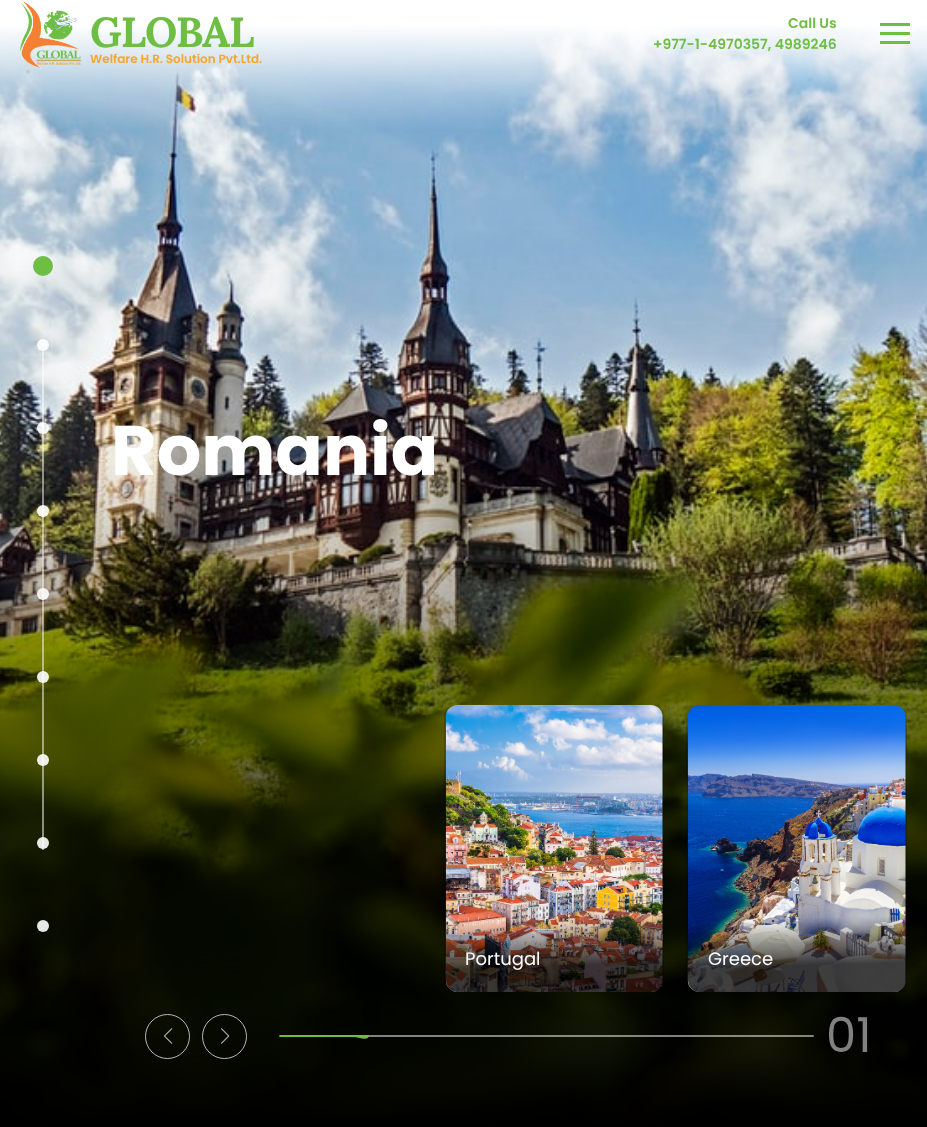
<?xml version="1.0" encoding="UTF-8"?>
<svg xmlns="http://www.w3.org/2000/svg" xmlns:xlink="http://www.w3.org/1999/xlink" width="927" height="1127">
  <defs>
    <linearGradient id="g1" gradientUnits="userSpaceOnUse" x1="559" y1="995" x2="549" y2="702"><stop offset="0.1" stop-color="#000000" stop-opacity="0.75" /><stop offset="0.26" stop-color="#000000" stop-opacity="0" /></linearGradient>
    <linearGradient id="g2" gradientUnits="userSpaceOnUse" x1="802" y1="995" x2="792" y2="702"><stop offset="0.1" stop-color="#000000" stop-opacity="0.75" /><stop offset="0.26" stop-color="#000000" stop-opacity="0" /></linearGradient>
  </defs>
  <rect width="100%" height="100%" fill="#ffffff" />
  <image x="0" y="0" width="927" height="1127" xlink:href="image2.png" />
  <image x="20" y="1" width="62" height="68" xlink:href="image1.png" />
  <rect x="880" y="23" width="30" height="3" fill="#6fbe44" />
  <rect x="880" y="32" width="30" height="3" fill="#6fbe44" />
  <rect x="880" y="41" width="30" height="3" fill="#6fbe44" />
  <circle cx="43" cy="266" r="10" fill="#6fbe44" />
  <circle cx="43" cy="345" r="6" fill="#ffffff" fill-opacity="0.9" />
  <circle cx="43" cy="428" r="6" fill="#ffffff" fill-opacity="0.9" />
  <circle cx="43" cy="511" r="6" fill="#ffffff" fill-opacity="0.9" />
  <circle cx="43" cy="594" r="6" fill="#ffffff" fill-opacity="0.9" />
  <circle cx="43" cy="677" r="6" fill="#ffffff" fill-opacity="0.9" />
  <circle cx="43" cy="760" r="6" fill="#ffffff" fill-opacity="0.9" />
  <circle cx="43" cy="843" r="6" fill="#ffffff" fill-opacity="0.9" />
  <circle cx="43" cy="926" r="6" fill="#e6e7e6" />
  <rect x="42" y="350" width="2" height="500" fill="#ffffff" fill-opacity="0.5" />
  <image x="444" y="705" width="220" height="287" xlink:href="image3.png" />
  <rect x="446" y="705" width="217" height="287" rx="12" fill="url(#g1)" />
  <image x="686" y="705" width="221" height="287" xlink:href="image4.png" />
  <rect x="688" y="705" width="218" height="287" rx="12" fill="url(#g2)" />
  <circle cx="167.5" cy="1036.5" r="22" fill="none" stroke="#ffffff" stroke-opacity="0.7" />
  <image x="164" y="1028" width="9" height="16" xlink:href="image5.png" />
  <circle cx="224.5" cy="1036.5" r="22" fill="none" stroke="#ffffff" stroke-opacity="0.7" />
  <image x="221" y="1028" width="9" height="16" xlink:href="image6.png" />
  <rect x="279" y="1035" width="535" height="2" rx="1" fill="#ffffff" fill-opacity="0.5" />
  <path d="M 280 1035 h 88 h 1 c 0 7 -11 2 -15 2 h -74 z" fill="#6fbe44" />
  <text x="90" y="47" style="font-family: Lora; font-size: 42px; font-weight: bold; letter-spacing: -1px; fill: #6ebe44">GLOBAL</text>
  <text x="90" y="63" style="font-family: Poppins; font-size: 12px; font-weight: 600; fill: #f8a52b">Welfare H.R. Solution Pvt.Ltd.</text>
  <text x="788" y="28" style="font-family: Poppins; font-size: 14px; font-weight: 600; fill: #6ebe44">Call Us</text>
  <text x="653" y="49" style="font-family: Poppins; font-size: 14px; font-weight: 600; fill: #6ebe44">+977-1-4970357, 4989246</text>
  <text x="111" y="475" style="font-family: Poppins; font-size: 70px; font-weight: bold; fill: #ffffff">Romania</text>
  <text x="465" y="965" style="font-family: Poppins; font-size: 18px; fill: #ffffff">Portugal</text>
  <text x="708" y="965" style="font-family: Poppins; font-size: 18px; fill: #ffffff">Greece</text>
  <text x="826" y="1052" style="font-family: Poppins; font-size: 48px; fill: #808180">01</text>
</svg>
